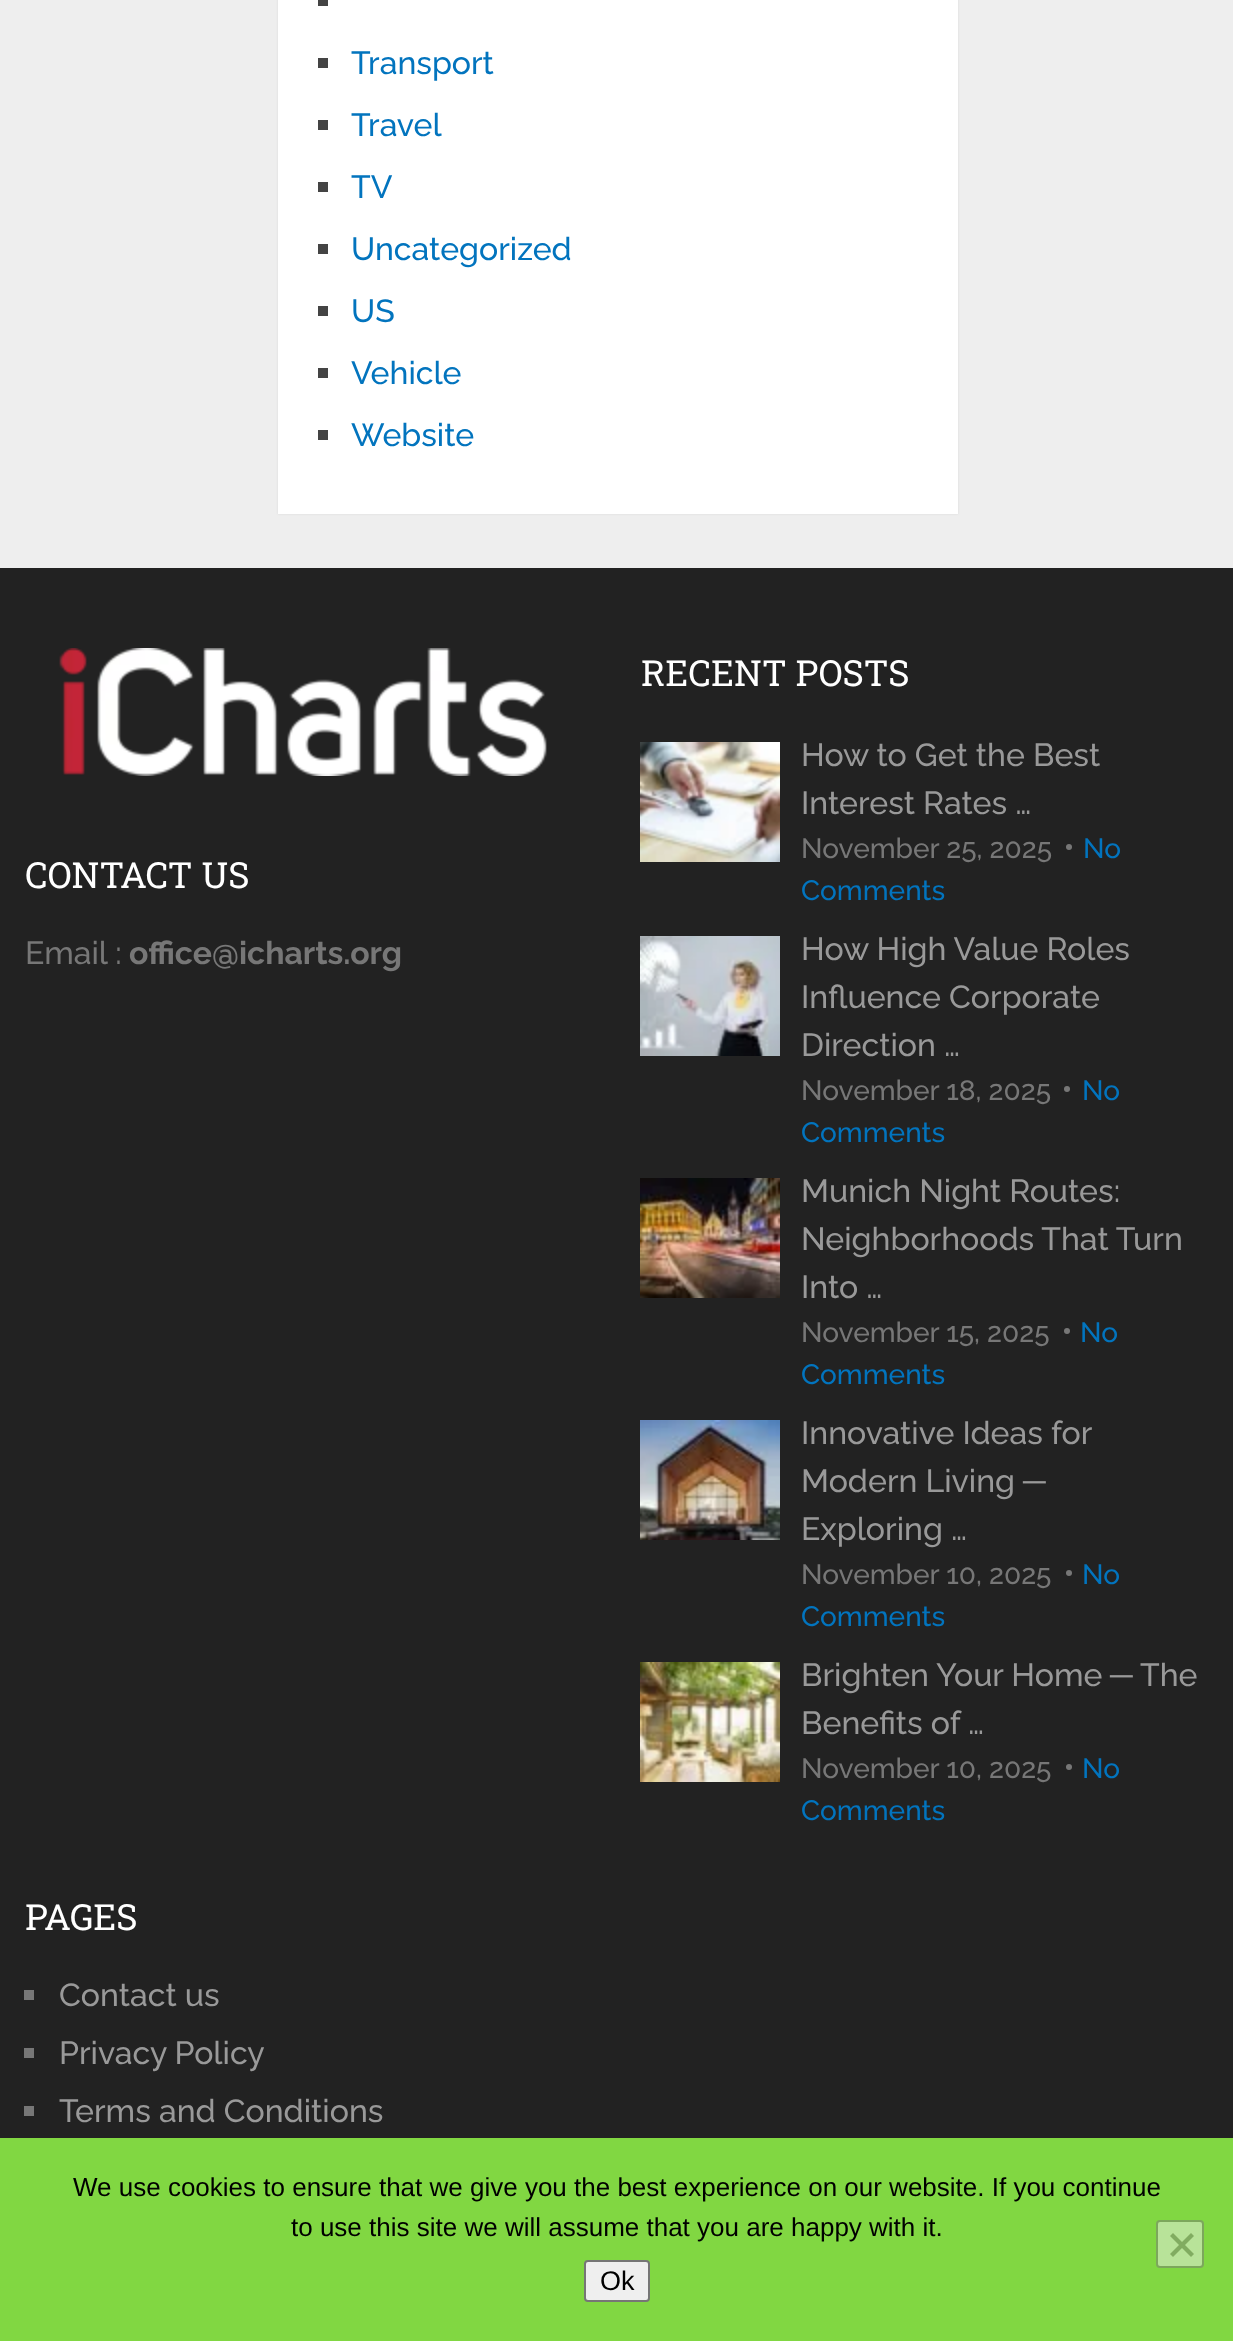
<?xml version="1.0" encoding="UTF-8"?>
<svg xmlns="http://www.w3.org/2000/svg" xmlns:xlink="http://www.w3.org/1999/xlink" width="1233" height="2341">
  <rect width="100%" height="100%" fill="#eeeeee" />
  <rect x="278" y="-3" width="680" height="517" fill="#323232" fill-opacity="0.1" filter="blur(1px)" />
  <rect x="278" width="680" height="514" fill="#ffffff" />
  <rect x="318" width="10" height="6" fill="#444444" />
  <rect x="318" y="58" width="10" height="10" fill="#444444" />
  <rect x="318" y="120" width="10" height="10" fill="#444444" />
  <rect x="318" y="182" width="10" height="10" fill="#444444" />
  <rect x="318" y="244" width="10" height="10" fill="#444444" />
  <rect x="318" y="306" width="10" height="10" fill="#444444" />
  <rect x="318" y="368" width="10" height="10" fill="#444444" />
  <rect x="318" y="430" width="10" height="10" fill="#444444" />
  <rect y="568" width="1233" height="1570" fill="#222222" />
  <image x="59" y="648" width="488" height="128" xlink:href="image1.png" />
  <image x="640" y="742" width="140" height="120" xlink:href="image2.png" />
  <circle cx="1069" cy="847" r="3" fill="#777777" />
  <image x="640" y="936" width="140" height="120" xlink:href="image3.png" />
  <circle cx="1067" cy="1089" r="3" fill="#777777" />
  <image x="640" y="1178" width="140" height="120" xlink:href="image4.png" />
  <circle cx="1067" cy="1331" r="3" fill="#777777" />
  <image x="640" y="1420" width="140" height="120" xlink:href="image5.png" />
  <circle cx="1069" cy="1573" r="3" fill="#777777" />
  <image x="640" y="1662" width="140" height="120" xlink:href="image6.png" />
  <circle cx="1069" cy="1767" r="3" fill="#777777" />
  <rect x="24" y="1990" width="10" height="10" fill="#777777" />
  <rect x="24" y="2048" width="10" height="10" fill="#777777" />
  <rect x="24" y="2106" width="10" height="10" fill="#777777" />
  <rect y="2138" width="1233" height="203" fill="#81d742" />
  <rect x="1157" y="2221" width="46" height="46" rx="3" fill="#b8e399" stroke="#7ca75c" stroke-width="2" />
  <path d="M 1191 2233 l 3 3 l -21 21 l -3 -3 z" fill="#81ac61" />
  <path d="M 1170 2236 l 3 -3 l 21 21 l -3 3 z" fill="#81ac61" />
  <rect x="585" y="2261" width="64" height="40" rx="3" fill="#efefef" stroke="#767676" stroke-width="2" />
  <text x="351" y="74" style="font-family: Raleway; font-size: 32px; font-weight: 500; fill: #0274be">Transport</text>
  <text x="351" y="136" style="font-family: Raleway; font-size: 32px; font-weight: 500; fill: #0274be">Travel</text>
  <text x="351" y="198" style="font-family: Raleway; font-size: 32px; font-weight: 500; fill: #0274be">TV</text>
  <text x="351" y="260" style="font-family: Raleway; font-size: 32px; font-weight: 500; fill: #0274be">Uncategorized</text>
  <text x="351" y="322" style="font-family: Raleway; font-size: 32px; font-weight: 500; fill: #0274be">US</text>
  <text x="351" y="384" style="font-family: Raleway; font-size: 32px; font-weight: 500; fill: #0274be">Vehicle</text>
  <text x="351" y="446" style="font-family: Raleway; font-size: 32px; font-weight: 500; fill: #0274be">Website</text>
  <text x="25" y="888" style="font-family: Roboto Slab; font-size: 36px; fill: #ffffff">CONTACT US</text>
  <text x="25" y="964" style="font-family: Raleway; font-size: 32px; font-weight: 500; fill: #777777">Email :</text>
  <text x="129" y="964" style="font-family: Raleway; font-size: 32px; font-weight: bold; fill: #777777">office@icharts.org</text>
  <text x="641" y="686" style="font-family: Roboto Slab; font-size: 36px; fill: #ffffff">RECENT POSTS</text>
  <text x="801" y="766" style="font-family: Raleway; font-size: 32px; font-weight: 500; fill: #999999">How to Get the Best</text>
  <text x="801" y="814" style="font-family: Raleway; font-size: 32px; font-weight: 500; fill: #999999">Interest Rates …</text>
  <text x="801" y="858" style="font-family: Raleway; font-size: 28px; font-weight: 500; fill: #777777">November 25, 2025</text>
  <text x="1083" y="858" style="font-family: Raleway; font-size: 28px; font-weight: 500; fill: #0274be">No</text>
  <text x="801" y="900" style="font-family: Raleway; font-size: 28px; font-weight: 500; fill: #0274be">Comments</text>
  <text x="801" y="960" style="font-family: Raleway; font-size: 32px; font-weight: 500; fill: #999999">How High Value Roles</text>
  <text x="801" y="1008" style="font-family: Raleway; font-size: 32px; font-weight: 500; fill: #999999">Influence Corporate</text>
  <text x="801" y="1056" style="font-family: Raleway; font-size: 32px; font-weight: 500; fill: #999999">Direction …</text>
  <text x="801" y="1100" style="font-family: Raleway; font-size: 28px; font-weight: 500; fill: #777777">November 18, 2025</text>
  <text x="1082" y="1100" style="font-family: Raleway; font-size: 28px; font-weight: 500; fill: #0274be">No</text>
  <text x="801" y="1142" style="font-family: Raleway; font-size: 28px; font-weight: 500; fill: #0274be">Comments</text>
  <text x="801" y="1202" style="font-family: Raleway; font-size: 32px; font-weight: 500; fill: #999999">Munich Night Routes:</text>
  <text x="801" y="1250" style="font-family: Raleway; font-size: 32px; font-weight: 500; fill: #999999">Neighborhoods That Turn</text>
  <text x="801" y="1298" style="font-family: Raleway; font-size: 32px; font-weight: 500; fill: #999999">Into …</text>
  <text x="801" y="1342" style="font-family: Raleway; font-size: 28px; font-weight: 500; fill: #777777">November 15, 2025</text>
  <text x="1080" y="1342" style="font-family: Raleway; font-size: 28px; font-weight: 500; fill: #0274be">No</text>
  <text x="801" y="1384" style="font-family: Raleway; font-size: 28px; font-weight: 500; fill: #0274be">Comments</text>
  <text x="801" y="1444" style="font-family: Raleway; font-size: 32px; font-weight: 500; fill: #999999">Innovative Ideas for</text>
  <text x="801" y="1492" style="font-family: Raleway; font-size: 32px; font-weight: 500; fill: #999999">Modern Living</text>
  <text x="1023" y="1492" style="font-family: Liberation Serif; font-size: 32px; fill: #999999">─</text>
  <text x="801" y="1540" style="font-family: Raleway; font-size: 32px; font-weight: 500; fill: #999999">Exploring …</text>
  <text x="801" y="1584" style="font-family: Raleway; font-size: 28px; font-weight: 500; fill: #777777">November 10, 2025</text>
  <text x="1082" y="1584" style="font-family: Raleway; font-size: 28px; font-weight: 500; fill: #0274be">No</text>
  <text x="801" y="1626" style="font-family: Raleway; font-size: 28px; font-weight: 500; fill: #0274be">Comments</text>
  <text x="801" y="1686" style="font-family: Raleway; font-size: 32px; font-weight: 500; fill: #999999">Brighten Your Home</text>
  <text x="1110" y="1686" style="font-family: Liberation Serif; font-size: 32px; fill: #999999">─</text>
  <text x="1140" y="1686" style="font-family: Raleway; font-size: 32px; font-weight: 500; fill: #999999">The</text>
  <text x="801" y="1734" style="font-family: Raleway; font-size: 32px; font-weight: 500; fill: #999999">Benefits of …</text>
  <text x="801" y="1778" style="font-family: Raleway; font-size: 28px; font-weight: 500; fill: #777777">November 10, 2025</text>
  <text x="1082" y="1778" style="font-family: Raleway; font-size: 28px; font-weight: 500; fill: #0274be">No</text>
  <text x="801" y="1820" style="font-family: Raleway; font-size: 28px; font-weight: 500; fill: #0274be">Comments</text>
  <text x="25" y="1930" style="font-family: Roboto Slab; font-size: 36px; fill: #ffffff">PAGES</text>
  <text x="59" y="2006" style="font-family: Raleway; font-size: 32px; font-weight: 500; fill: #999999">Contact us</text>
  <text x="59" y="2064" style="font-family: Raleway; font-size: 32px; font-weight: 500; fill: #999999">Privacy Policy</text>
  <text x="59" y="2122" style="font-family: Raleway; font-size: 32px; font-weight: 500; fill: #999999">Terms and Conditions</text>
  <text x="73" y="2196" style="font-family: Liberation Sans; font-size: 26px; fill: #000000">We use cookies to ensure that we give you the best experience on our website. If you continue</text>
  <text x="291" y="2236" style="font-family: Liberation Sans; font-size: 26px; fill: #000000">to use this site we will assume that you are happy with it.</text>
  <text x="600" y="2290" style="font-family: Liberation Sans; font-size: 27px; fill: #000000">Ok</text>
</svg>
